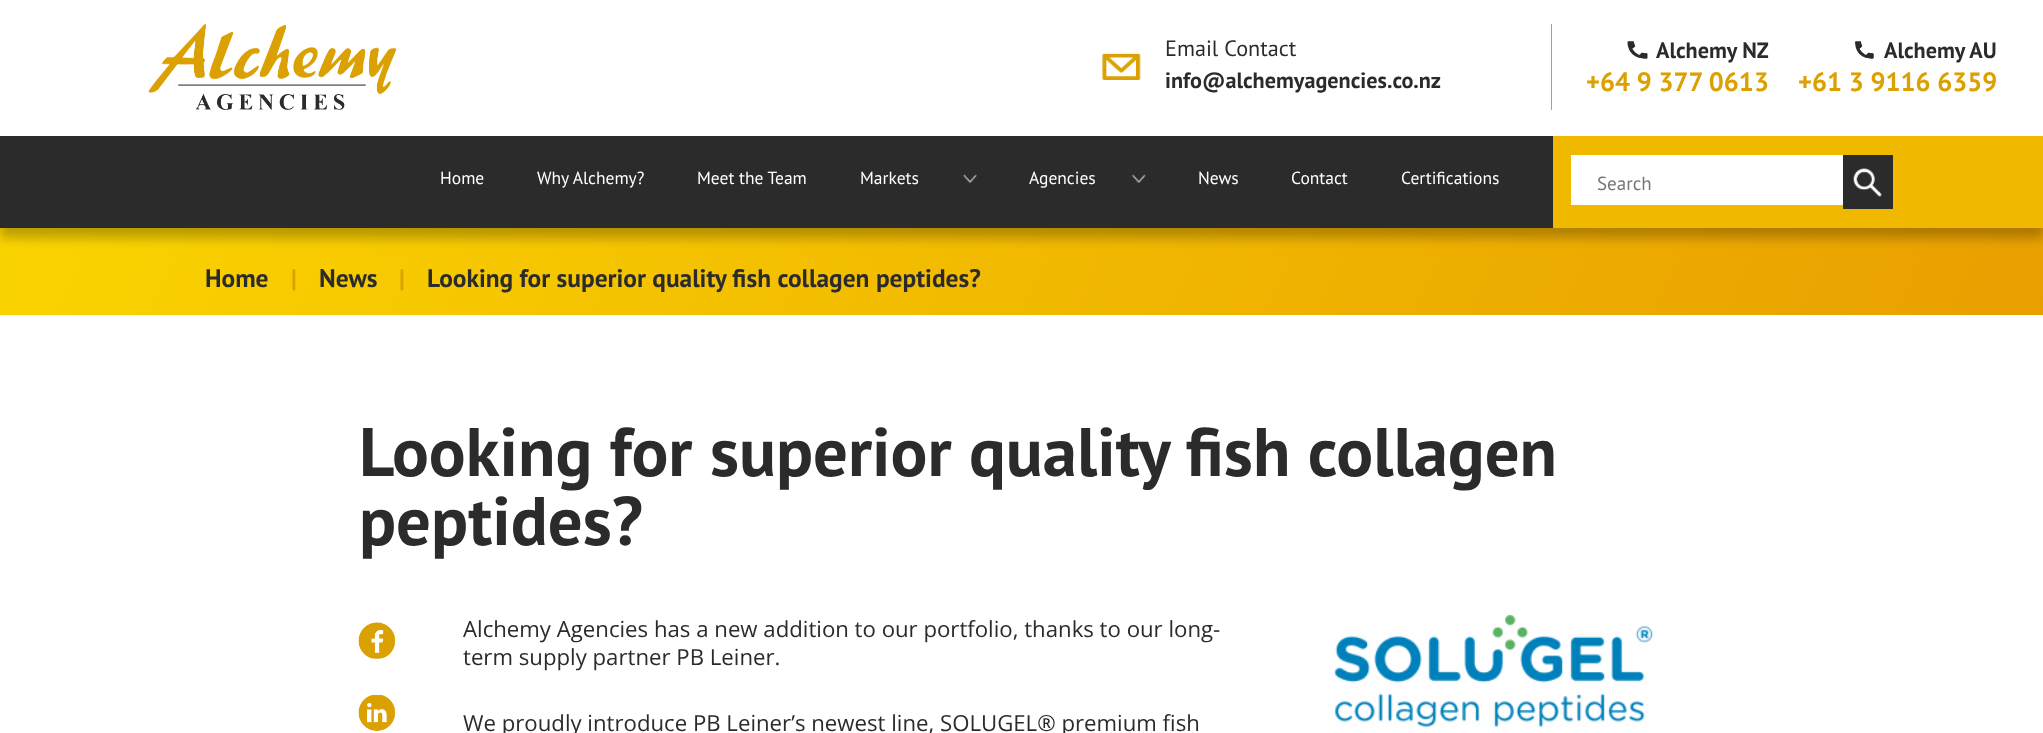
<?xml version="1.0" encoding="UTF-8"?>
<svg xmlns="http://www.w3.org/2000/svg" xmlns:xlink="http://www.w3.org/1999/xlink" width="2043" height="733">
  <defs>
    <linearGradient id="g1" gradientUnits="userSpaceOnUse" x1="178" y1="-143" x2="1866" y2="680"><stop offset="0" stop-color="#fad400" /><stop offset="1" stop-color="#e99f00" /></linearGradient>
  </defs>
  <rect width="100%" height="100%" fill="#ffffff" />
  <image x="148" y="23" width="249" height="87" xlink:href="image1.png" />
  <image x="1102" y="53" width="39" height="27" xlink:href="image2.png" />
  <rect x="1551" y="24" width="1" height="86" fill="#dba001" />
  <image x="1627" y="41" width="21" height="18" xlink:href="image3.png" />
  <image x="1855" y="41" width="19" height="18" xlink:href="image4.png" />
  <rect y="228" width="2043" height="87" fill="url(#g1)" />
  <rect y="146" width="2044" height="92" fill="#000000" fill-opacity="0.25" filter="blur(5.5px)" />
  <rect y="136" width="1553" height="92" fill="#2b2b2b" />
  <image x="963" y="174" width="14" height="10" xlink:href="image5.png" />
  <image x="1131" y="174" width="15" height="10" xlink:href="image6.png" />
  <rect x="1553" y="136" width="490" height="92" fill="#f0b900" />
  <rect x="1571" y="155" width="272" height="50" fill="#ffffff" />
  <rect x="1843" y="155" width="50" height="54" fill="#2b2b2b" />
  <image x="1853" y="168" width="29" height="29" xlink:href="image7.png" />
  <image x="358" y="622" width="37" height="37" xlink:href="image8.png" />
  <image x="358" y="695" width="37" height="36" xlink:href="image9.png" />
  <image x="1334" y="614" width="320" height="113" xlink:href="image10.png" />
  <text x="1165" y="56" style="font-family: PT Sans; font-size: 22.2px; fill: #2b2b2b">Email Contact</text>
  <text x="1165" y="88" style="font-family: PT Sans; font-size: 22.2px; font-weight: bold; fill: #2b2b2b">info@alchemyagencies.co.nz</text>
  <text x="1656" y="58" style="font-family: PT Sans; font-size: 22.2px; font-weight: bold; fill: #2b2b2b">Alchemy NZ</text>
  <text x="1586" y="91" style="font-family: PT Sans; font-size: 26.5px; font-weight: bold; fill: #dba001">+64 9 377 0613</text>
  <text x="1884" y="58" style="font-family: PT Sans; font-size: 22.2px; font-weight: bold; fill: #2b2b2b">Alchemy AU</text>
  <text x="1798" y="91" style="font-family: PT Sans; font-size: 26.5px; font-weight: bold; fill: #dba001">+61 3 9116 6359</text>
  <text x="440" y="184" style="font-family: PT Sans; font-size: 17.5px; fill: #ffffff">Home</text>
  <text x="537" y="184" style="font-family: PT Sans; font-size: 17.5px; fill: #ffffff">Why Alchemy?</text>
  <text x="697" y="184" style="font-family: PT Sans; font-size: 17.5px; fill: #ffffff">Meet the Team</text>
  <text x="860" y="184" style="font-family: PT Sans; font-size: 17.5px; fill: #ffffff">Markets</text>
  <text x="1029" y="184" style="font-family: PT Sans; font-size: 17.5px; fill: #ffffff">Agencies</text>
  <text x="1198" y="184" style="font-family: PT Sans; font-size: 17.5px; fill: #ffffff">News</text>
  <text x="1291" y="184" style="font-family: PT Sans; font-size: 17.5px; fill: #ffffff">Contact</text>
  <text x="1401" y="184" style="font-family: PT Sans; font-size: 17.5px; fill: #ffffff">Certifications</text>
  <text x="1597" y="190" style="font-family: PT Sans; font-size: 19px; fill: #757575">Search</text>
  <text x="205" y="287" style="font-family: PT Sans; font-size: 25.4px; font-weight: bold; fill: #2b2b2b">Home</text>
  <text x="291" y="287" style="font-family: PT Sans; font-size: 25.4px; font-weight: bold; fill: #dba001">|</text>
  <text x="319" y="287" style="font-family: PT Sans; font-size: 25.4px; font-weight: bold; fill: #2b2b2b">News</text>
  <text x="399" y="287" style="font-family: PT Sans; font-size: 25.4px; font-weight: bold; fill: #dba001">|</text>
  <text x="427" y="287" style="font-family: PT Sans; font-size: 25.4px; font-weight: bold; fill: #2b2b2b">Looking for superior quality fish collagen peptides?</text>
  <text x="359" y="476" style="font-family: PT Sans; font-size: 68.75px; font-weight: bold; fill: #2b2b2b">Looking for superior quality fish collagen</text>
  <text x="359" y="545" style="font-family: PT Sans; font-size: 68.75px; font-weight: bold; fill: #2b2b2b">peptides?</text>
  <text x="463" y="637" style="font-family: Open Sans; font-size: 22.2px; fill: #2b2b2b">Alchemy Agencies has a new addition to our portfolio, thanks to our long-</text>
  <text x="463" y="665" style="font-family: Open Sans; font-size: 22.2px; fill: #2b2b2b">term supply partner PB Leiner.</text>
  <text x="463" y="731" style="font-family: Open Sans; font-size: 22.2px; fill: #2b2b2b">We proudly introduce PB Leiner’s newest line, SOLUGEL® premium fish</text>
</svg>
